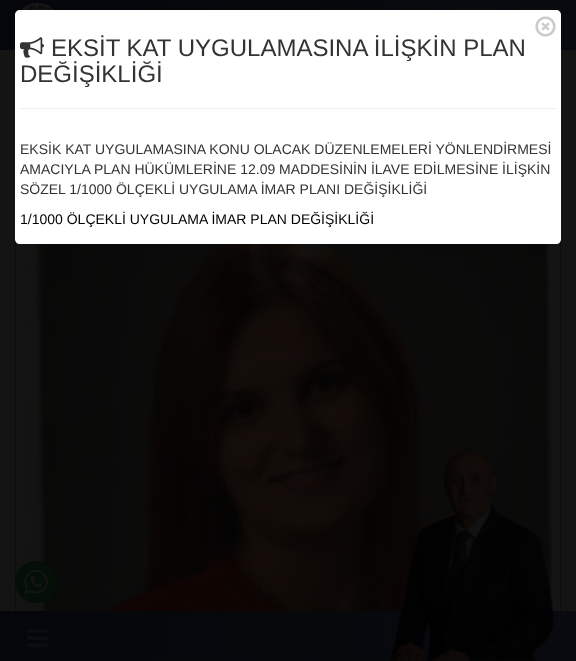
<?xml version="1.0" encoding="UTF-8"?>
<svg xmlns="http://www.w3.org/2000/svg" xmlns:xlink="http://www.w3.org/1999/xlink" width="576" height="661">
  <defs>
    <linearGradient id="g1" gradientUnits="userSpaceOnUse" x1="0" y1="25" x2="576" y2="25"><stop offset="0" stop-color="#05060b" /><stop offset="0.5" stop-color="#07080c" /><stop offset="1" stop-color="#090a0f" /></linearGradient>
    <linearGradient id="g2" gradientUnits="userSpaceOnUse" x1="0" y1="636" x2="576" y2="636"><stop offset="0" stop-color="#05060b" /><stop offset="0.5" stop-color="#07080c" /><stop offset="1" stop-color="#090a0f" /></linearGradient>
  </defs>
  <rect width="100%" height="100%" fill="#141414" />
  <rect width="576" height="50" fill="url(#g1)" />
  <image x="19" y="2" width="36" height="9" xlink:href="image1.png" />
  <rect x="451.5" y="8.5" width="44" height="33" rx="2.5" fill="none" stroke="#0c0d10" />
  <rect x="517.5" y="8.5" width="43" height="33" rx="3.5" fill="none" stroke="#0c0d10" />
  <path d="M 20 10 h 536 c 3 0 5 2 5 5 v 119 h -546 v -119 c 0 -3 2 -5 5 -5 z" fill="#ffffff" />
  <image x="535" y="16" width="21" height="21" xlink:href="image2.png" />
  <image x="20" y="37" width="24" height="21" xlink:href="image3.png" />
  <rect x="20" y="108" width="536" height="1" fill="#eeeeee" />
  <rect x="15.5" y="167.5" width="545" height="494" fill="none" stroke="#0c0d10" />
  <path d="M 15 134 h 546 v 105 c 0 3 -2 5 -5 5 h -536 c -3 0 -5 -2 -5 -5 z" fill="#ffffff" />
  <image x="21" y="244" width="532" height="367" xlink:href="image4.png" />
  <rect y="611" width="576" height="50" fill="url(#g2)" />
  <image x="27" y="629" width="22" height="18" xlink:href="image5.png" />
  <image x="388" y="448" width="166" height="213" xlink:href="image6.png" />
  <circle cx="36" cy="582" r="21" fill="#040f07" />
  <image x="24" y="569" width="24" height="25" xlink:href="image7.png" />
  <text x="51" y="56" style="font-family: Liberation Sans; font-size: 24px; fill: #333333">EKSİT KAT UYGULAMASINA İLİŞKİN PLAN</text>
  <text x="20" y="82" style="font-family: Liberation Sans; font-size: 24px; fill: #333333">DEĞİŞİKLİĞİ</text>
  <text x="20" y="154" style="font-family: Liberation Sans; font-size: 14px; fill: #333333">EKSİK KAT UYGULAMASINA KONU OLACAK DÜZENLEMELERİ YÖNLENDİRMESİ</text>
  <text x="20" y="174" style="font-family: Liberation Sans; font-size: 14px; fill: #333333">AMACIYLA PLAN HÜKÜMLERİNE 12.09 MADDESİNİN İLAVE EDİLMESİNE İLİŞKİN</text>
  <text x="20" y="194" style="font-family: Liberation Sans; font-size: 14px; fill: #333333">SÖZEL 1/1000 ÖLÇEKLİ UYGULAMA İMAR PLANI DEĞİŞİKLİĞİ</text>
  <text x="20" y="224" style="font-family: Liberation Sans; font-size: 14px; fill: #000000">1/1000 ÖLÇEKLİ UYGULAMA İMAR PLAN DEĞİŞİKLİĞİ</text>
</svg>
